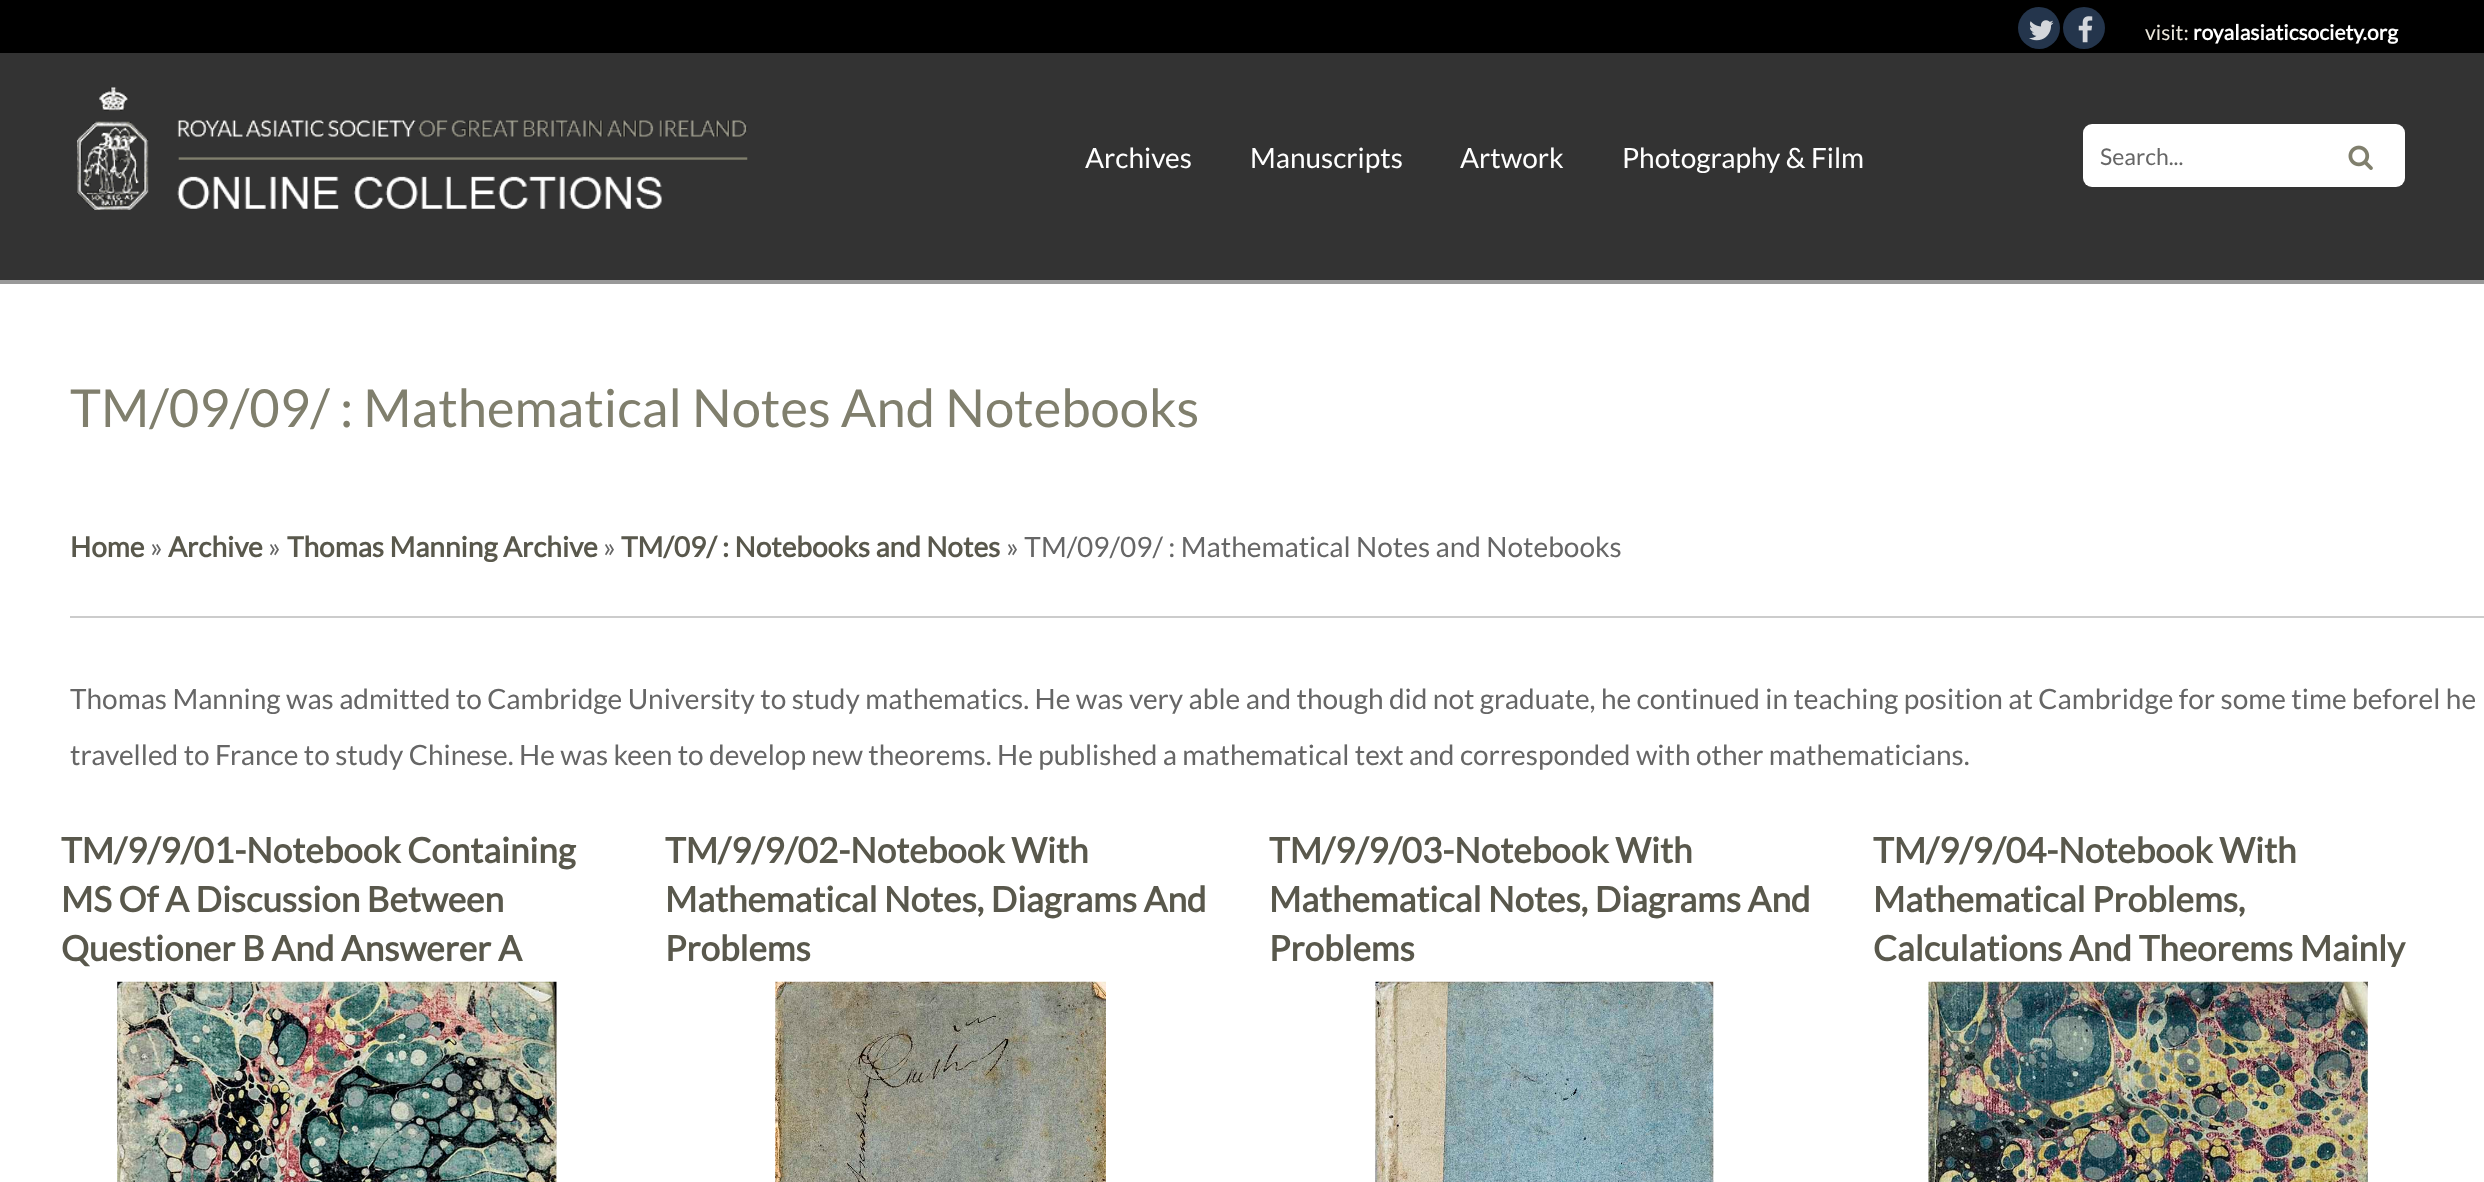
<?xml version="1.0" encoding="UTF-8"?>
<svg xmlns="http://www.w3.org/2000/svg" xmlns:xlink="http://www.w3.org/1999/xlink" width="2484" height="1182">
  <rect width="100%" height="100%" fill="#ffffff" />
  <rect width="2484" height="53" fill="#000000" />
  <circle cx="2039" cy="28" r="21" fill="#24354c" />
  <image x="2029" y="20" width="25" height="21" xlink:href="image1.png" />
  <circle cx="2084" cy="28" r="21" fill="#24354c" />
  <image x="2078" y="16" width="15" height="27" xlink:href="image2.png" />
  <rect y="53" width="2484" height="227" fill="#333333" />
  <rect y="280" width="2484" height="4" fill="#999999" />
  <image x="77" y="87" width="671" height="123" xlink:href="image3.png" />
  <rect x="2083" y="124" width="322" height="63" rx="9" fill="#ffffff" />
  <image x="2348" y="145" width="25" height="25" xlink:href="image4.png" />
  <rect x="70" y="616" width="2414" height="2" fill="#cccccc" />
  <image x="117" y="981" width="440" height="201" xlink:href="image5.png" />
  <image x="775" y="981" width="331" height="201" xlink:href="image6.png" />
  <image x="1375" y="981" width="339" height="201" xlink:href="image7.png" />
  <image x="1928" y="981" width="440" height="201" xlink:href="image8.png" />
  <text x="2145" y="40" style="font-family: Lato; font-size: 21px; fill: #eae6da">visit:</text>
  <text x="2193" y="40" style="font-family: Lato; font-size: 21px; font-weight: bold; fill: #ffffff">royalasiaticsociety.org</text>
  <text x="1085" y="168" style="font-family: Lato; font-size: 28px; fill: #ffffff">Archives</text>
  <text x="1250" y="168" style="font-family: Lato; font-size: 28px; fill: #ffffff">Manuscripts</text>
  <text x="1460" y="168" style="font-family: Lato; font-size: 28px; fill: #ffffff">Artwork</text>
  <text x="1622" y="168" style="font-family: Lato; font-size: 28px; fill: #ffffff">Photography &amp; Film</text>
  <text x="2100" y="165" style="font-family: Lato; font-size: 23px; fill: #666666">Search...</text>
  <text x="70" y="427" style="font-family: Lato; font-size: 52.5px; fill: #807f6d">TM/09/09/ : Mathematical Notes And Notebooks</text>
  <text x="70" y="557" style="font-family: Lato; font-size: 28px; font-weight: bold; fill: #59584c">Home</text>
  <text x="150" y="557" style="font-family: Lato; font-size: 28px; fill: #666666">»</text>
  <text x="168" y="557" style="font-family: Lato; font-size: 28px; font-weight: bold; fill: #59584c">Archive</text>
  <text x="268" y="557" style="font-family: Lato; font-size: 28px; fill: #666666">»</text>
  <text x="287" y="557" style="font-family: Lato; font-size: 28px; font-weight: bold; fill: #59584c">Thomas Manning Archive</text>
  <text x="603" y="557" style="font-family: Lato; font-size: 28px; fill: #666666">»</text>
  <text x="621" y="557" style="font-family: Lato; font-size: 28px; font-weight: bold; fill: #59584c">TM/09/ : Notebooks and Notes</text>
  <text x="1006" y="557" style="font-family: Lato; font-size: 28px; fill: #666666">» TM/09/09/ : Mathematical Notes and Notebooks</text>
  <text x="70" y="709" style="font-family: Lato; font-size: 28px; fill: #666666">Thomas Manning was admitted to Cambridge University to study mathematics. He was very able and though did not graduate, he continued in teaching position at Cambridge for some time beforel he</text>
  <text x="70" y="765" style="font-family: Lato; font-size: 28px; fill: #666666">travelled to France to study Chinese. He was keen to develop new theorems. He published a mathematical text and corresponded with other mathematicians.</text>
  <text x="61" y="863" style="font-family: Lato; font-size: 35px; font-weight: bold; fill: #59584c">TM/9/9/01-Notebook Containing</text>
  <text x="61" y="912" style="font-family: Lato; font-size: 35px; font-weight: bold; fill: #59584c">MS Of A Discussion Between</text>
  <text x="61" y="961" style="font-family: Lato; font-size: 35px; font-weight: bold; fill: #59584c">Questioner B And Answerer A</text>
  <text x="665" y="863" style="font-family: Lato; font-size: 35px; font-weight: bold; fill: #59584c">TM/9/9/02-Notebook With</text>
  <text x="665" y="912" style="font-family: Lato; font-size: 35px; font-weight: bold; fill: #59584c">Mathematical Notes, Diagrams And</text>
  <text x="665" y="961" style="font-family: Lato; font-size: 35px; font-weight: bold; fill: #59584c">Problems</text>
  <text x="1269" y="863" style="font-family: Lato; font-size: 35px; font-weight: bold; fill: #59584c">TM/9/9/03-Notebook With</text>
  <text x="1269" y="912" style="font-family: Lato; font-size: 35px; font-weight: bold; fill: #59584c">Mathematical Notes, Diagrams And</text>
  <text x="1269" y="961" style="font-family: Lato; font-size: 35px; font-weight: bold; fill: #59584c">Problems</text>
  <text x="1873" y="863" style="font-family: Lato; font-size: 35px; font-weight: bold; fill: #59584c">TM/9/9/04-Notebook With</text>
  <text x="1873" y="912" style="font-family: Lato; font-size: 35px; font-weight: bold; fill: #59584c">Mathematical Problems,</text>
  <text x="1873" y="961" style="font-family: Lato; font-size: 35px; font-weight: bold; fill: #59584c">Calculations And Theorems Mainly</text>
</svg>
